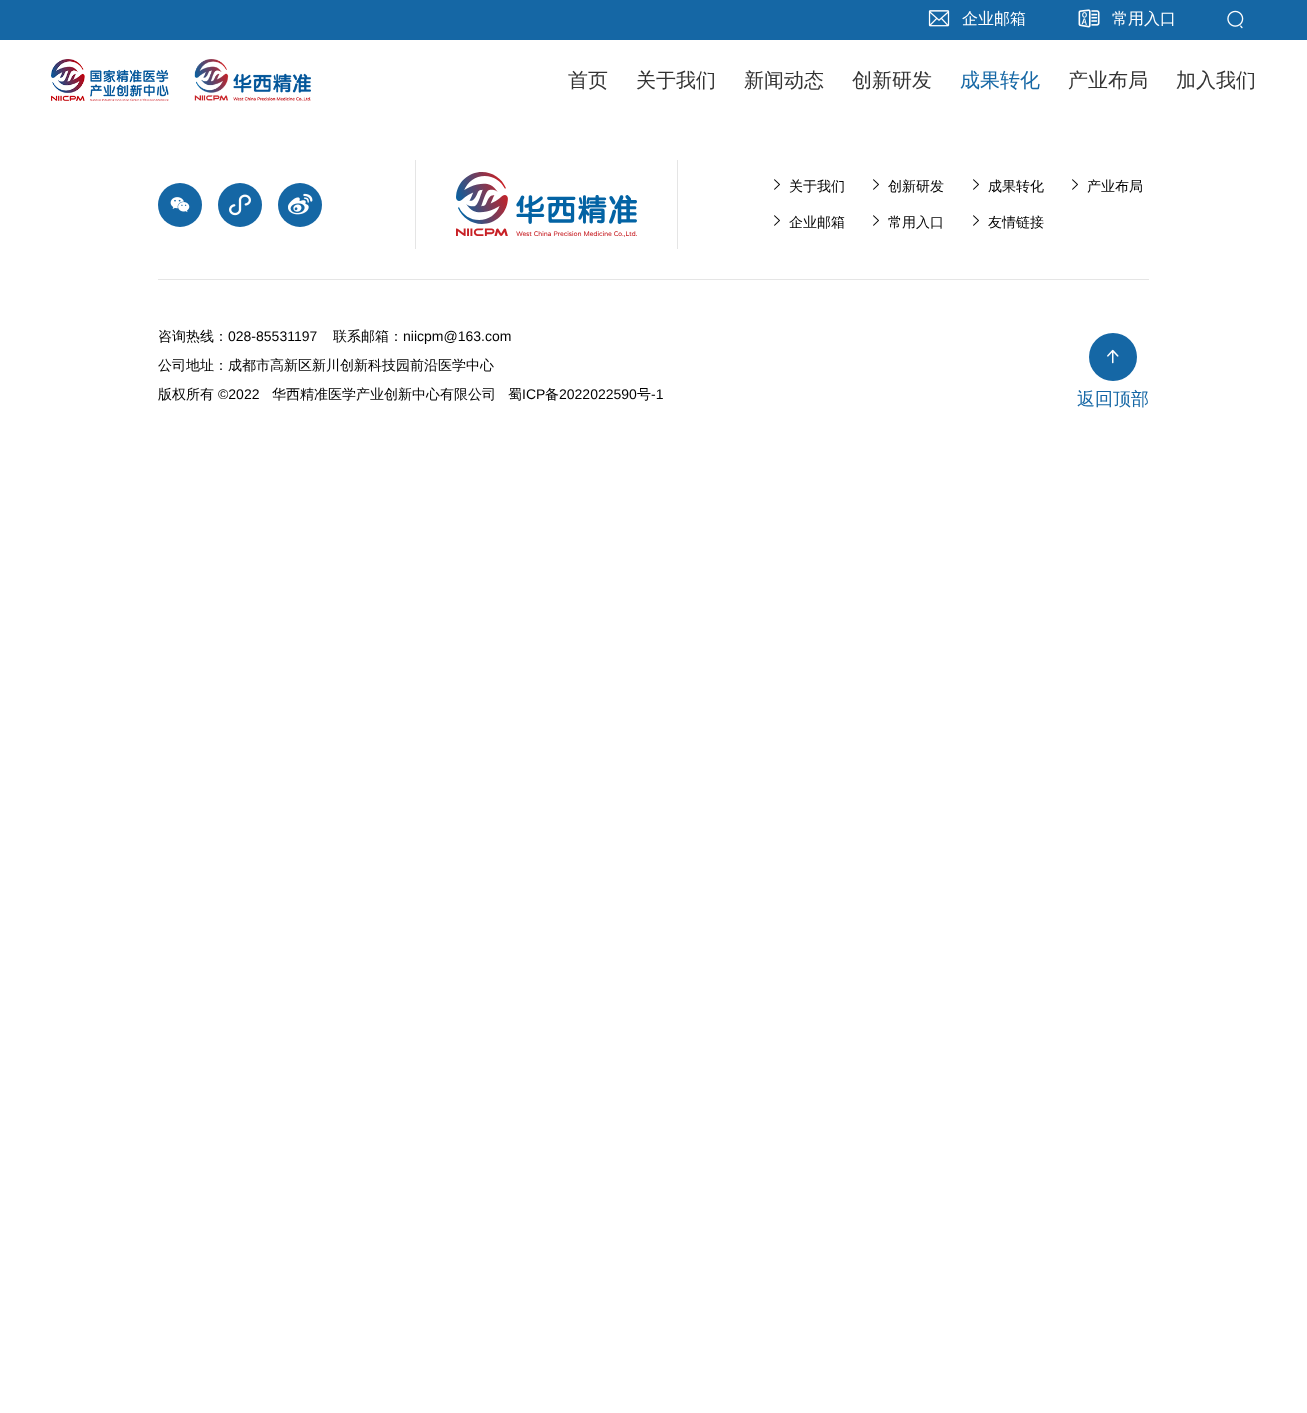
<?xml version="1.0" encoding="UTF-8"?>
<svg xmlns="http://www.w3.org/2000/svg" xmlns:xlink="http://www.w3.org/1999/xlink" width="1307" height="1413">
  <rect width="100%" height="100%" fill="#ffffff" />
  <rect width="1307" height="40" fill="#1567a5" />
  <image x="928" y="10" width="22" height="17" xlink:href="image1.png" />
  <image x="1078" y="9" width="22" height="19" xlink:href="image2.png" />
  <image x="1227" y="10" width="17" height="19" xlink:href="image3.png" />
  <image x="51" y="59" width="260" height="42" xlink:href="image4.png" />
  <rect x="158" y="279" width="991" height="1" fill="#e5e5e5" />
  <circle cx="180" cy="205" r="22" fill="#1567a5" />
  <image x="170" y="197" width="20" height="16" xlink:href="image5.png" />
  <circle cx="240" cy="205" r="22" fill="#1567a5" />
  <image x="229" y="194" width="22" height="22" xlink:href="image6.png" />
  <circle cx="300" cy="205" r="22" fill="#1567a5" />
  <image x="288" y="193" width="25" height="22" xlink:href="image7.png" />
  <rect x="677" y="160" width="1" height="89" fill="#e5e5e5" />
  <rect x="415" y="160" width="1" height="89" fill="#e5e5e5" />
  <image x="456" y="172" width="181" height="65" xlink:href="image8.png" />
  <image x="774" y="179" width="6" height="11" xlink:href="image9.png" />
  <image x="873" y="179" width="6" height="11" xlink:href="image9.png" />
  <image x="973" y="179" width="6" height="11" xlink:href="image9.png" />
  <image x="1072" y="179" width="6" height="11" xlink:href="image9.png" />
  <image x="774" y="215" width="6" height="11" xlink:href="image9.png" />
  <image x="873" y="215" width="6" height="11" xlink:href="image9.png" />
  <image x="973" y="215" width="6" height="11" xlink:href="image9.png" />
  <circle cx="1113" cy="357" r="24" fill="#1567a5" />
  <image x="1107" y="349" width="12" height="15" xlink:href="image10.png" />
  <text x="962" y="24" style="font-family: WenQuanYi Zen Hei; font-size: 16px; font-weight: 500; fill: #ffffff">企业邮箱</text>
  <text x="1112" y="24" style="font-family: WenQuanYi Zen Hei; font-size: 16px; font-weight: 500; fill: #ffffff">常用入口</text>
  <text x="568" y="87" style="font-family: WenQuanYi Zen Hei; font-size: 20px; font-weight: 500; fill: #333333">首页</text>
  <text x="636" y="87" style="font-family: WenQuanYi Zen Hei; font-size: 20px; font-weight: 500; fill: #333333">关于我们</text>
  <text x="744" y="87" style="font-family: WenQuanYi Zen Hei; font-size: 20px; font-weight: 500; fill: #333333">新闻动态</text>
  <text x="852" y="87" style="font-family: WenQuanYi Zen Hei; font-size: 20px; font-weight: 500; fill: #333333">创新研发</text>
  <text x="960" y="87" style="font-family: WenQuanYi Zen Hei; font-size: 20px; font-weight: 500; fill: #1567a5">成果转化</text>
  <text x="1068" y="87" style="font-family: WenQuanYi Zen Hei; font-size: 20px; font-weight: 500; fill: #333333">产业布局</text>
  <text x="1176" y="87" style="font-family: WenQuanYi Zen Hei; font-size: 20px; font-weight: 500; fill: #333333">加入我们</text>
  <text x="789" y="191" style="font-family: WenQuanYi Zen Hei; font-size: 14px; font-weight: 500; fill: #000000">关于我们</text>
  <text x="888" y="191" style="font-family: WenQuanYi Zen Hei; font-size: 14px; font-weight: 500; fill: #000000">创新研发</text>
  <text x="988" y="191" style="font-family: WenQuanYi Zen Hei; font-size: 14px; font-weight: 500; fill: #000000">成果转化</text>
  <text x="1087" y="191" style="font-family: WenQuanYi Zen Hei; font-size: 14px; font-weight: 500; fill: #000000">产业布局</text>
  <text x="789" y="227" style="font-family: WenQuanYi Zen Hei; font-size: 14px; font-weight: 500; fill: #000000">企业邮箱</text>
  <text x="888" y="227" style="font-family: WenQuanYi Zen Hei; font-size: 14px; font-weight: 500; fill: #000000">常用入口</text>
  <text x="988" y="227" style="font-family: WenQuanYi Zen Hei; font-size: 14px; font-weight: 500; fill: #000000">友情链接</text>
  <text x="158" y="341" style="font-family: WenQuanYi Zen Hei; font-size: 14px; font-weight: 500; fill: #000000">咨询热线：</text>
  <text x="228" y="341" style="font-family: Liberation Sans; font-size: 14px; fill: #000000">028-85531197</text>
  <text x="333" y="341" style="font-family: WenQuanYi Zen Hei; font-size: 14px; font-weight: 500; fill: #000000">联系邮箱：</text>
  <text x="403" y="341" style="font-family: Liberation Sans; font-size: 14px; fill: #000000">niicpm@163.com</text>
  <text x="158" y="370" style="font-family: WenQuanYi Zen Hei; font-size: 14px; font-weight: 500; fill: #000000">公司地址：成都市高新区新川创新科技园前沿医学中心</text>
  <text x="158" y="399" style="font-family: WenQuanYi Zen Hei; font-size: 14px; font-weight: 500; fill: #000000">版权所有</text>
  <text x="218" y="399" style="font-family: Liberation Sans; font-size: 14px; fill: #000000">©2022</text>
  <text x="272" y="399" style="font-family: WenQuanYi Zen Hei; font-size: 14px; font-weight: 500; fill: #000000">华西精准医学产业创新中心有限公司</text>
  <text x="508" y="399" style="font-family: WenQuanYi Zen Hei; font-size: 14px; font-weight: 500; fill: #000000">蜀</text>
  <text x="522" y="399" style="font-family: Liberation Sans; font-size: 14px; fill: #000000">ICP</text>
  <text x="545" y="399" style="font-family: WenQuanYi Zen Hei; font-size: 14px; font-weight: 500; fill: #000000">备</text>
  <text x="559" y="399" style="font-family: Liberation Sans; font-size: 14px; fill: #000000">2022022590</text>
  <text x="637" y="399" style="font-family: WenQuanYi Zen Hei; font-size: 14px; font-weight: 500; fill: #000000">号</text>
  <text x="651" y="399" style="font-family: Liberation Sans; font-size: 14px; fill: #000000">-1</text>
  <text x="1077" y="405" style="font-family: WenQuanYi Zen Hei; font-size: 18px; font-weight: 500; fill: #1567a5">返回顶部</text>
</svg>
